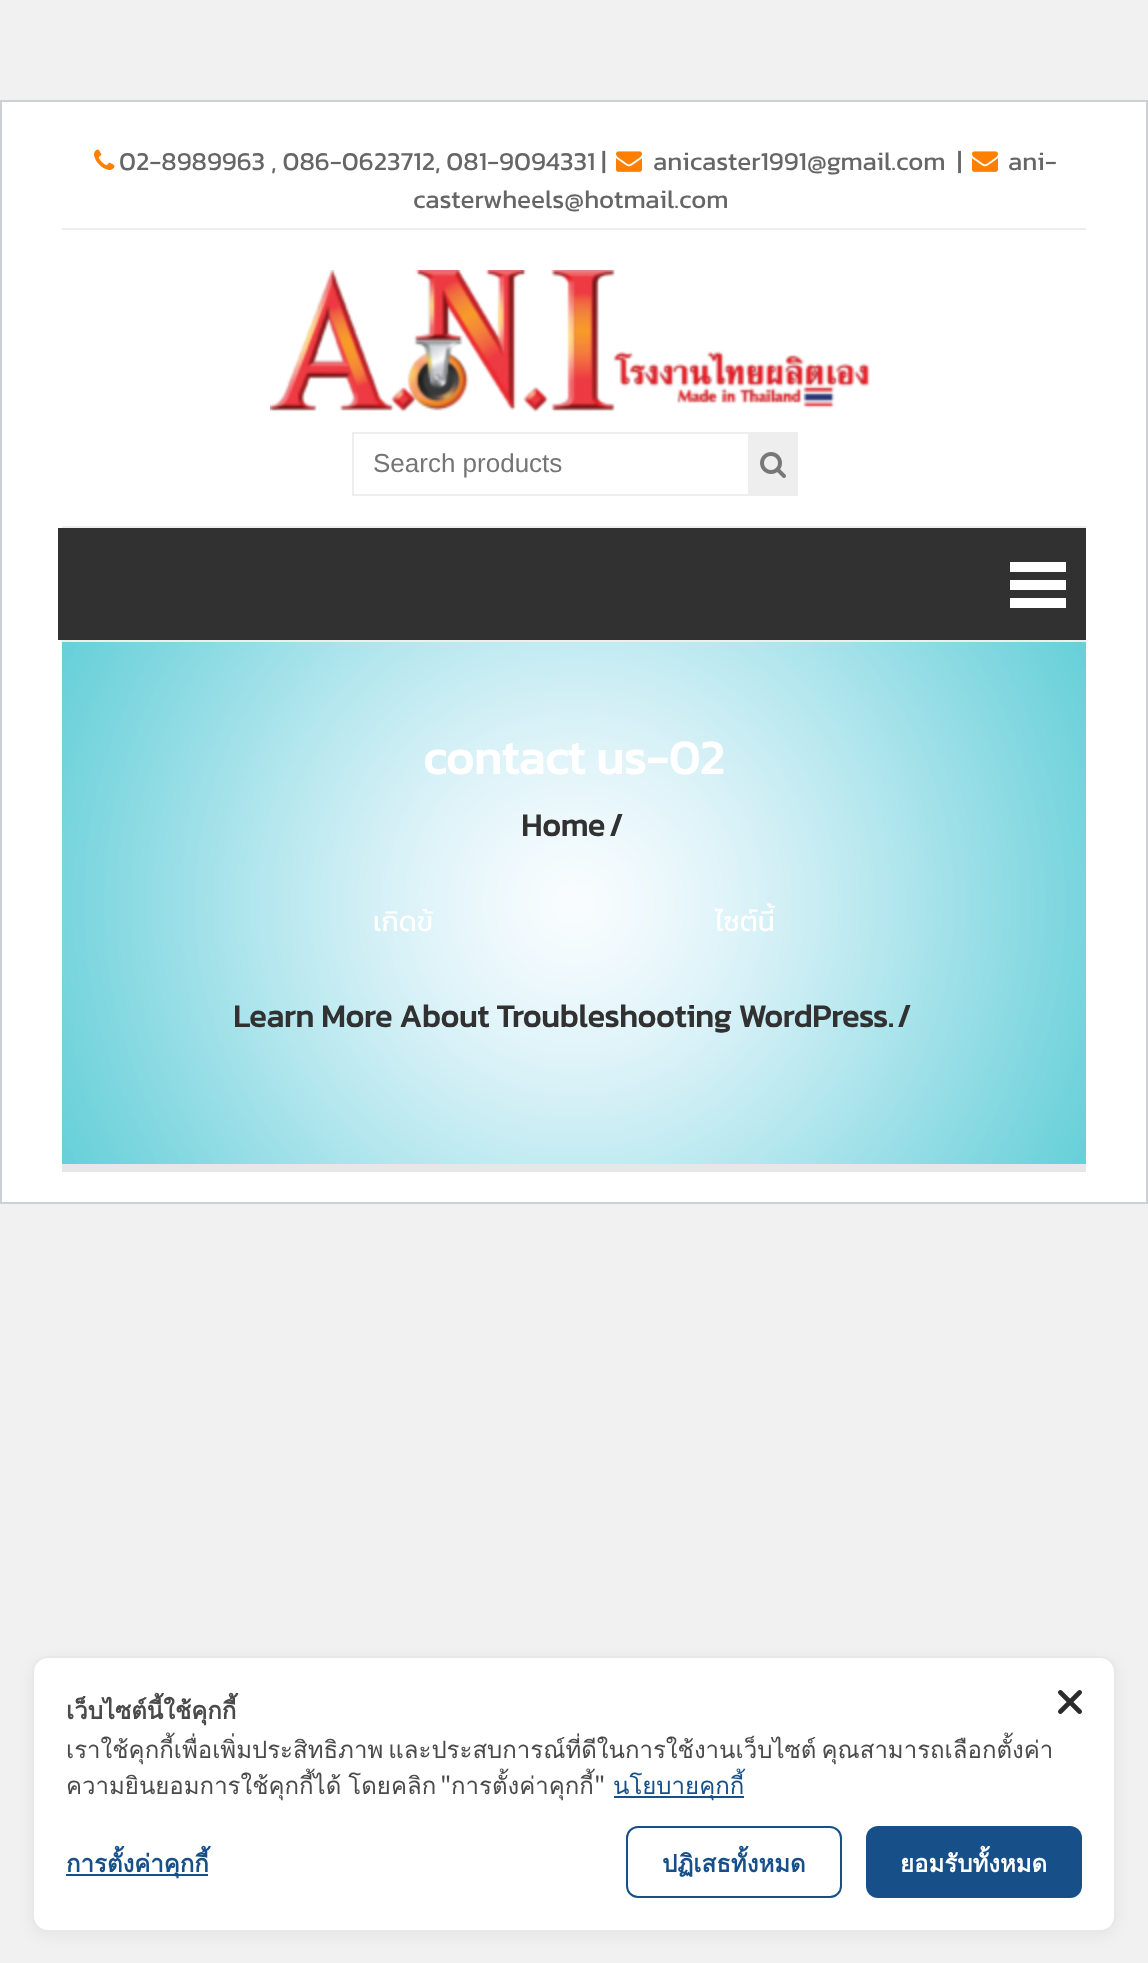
<?xml version="1.0" encoding="UTF-8"?>
<svg xmlns="http://www.w3.org/2000/svg" xmlns:xlink="http://www.w3.org/1999/xlink" width="1148" height="1963">
  <rect width="100%" height="100%" fill="#f1f1f1" />
  <rect x="1" y="101" width="1146" height="1102" fill="#ffffff" stroke="#ccd0d4" stroke-width="2" />
  <rect x="62" y="228" width="1024" height="2" fill="#eeeeee" />
  <image x="94" y="149" width="21" height="21" xlink:href="image1.png" />
  <image x="972" y="151" width="26" height="21" xlink:href="image2.png" />
  <image x="616" y="151" width="26" height="21" xlink:href="image2.png" />
  <image x="270" y="270" width="600" height="142" xlink:href="image3.png" />
  <rect x="353" y="433" width="444" height="62" fill="none" stroke="#eeeeee" stroke-width="2" />
  <rect x="748" y="434" width="48" height="60" fill="#eeeeee" />
  <image x="760" y="452" width="26" height="26" xlink:href="image4.png" />
  <rect x="62" y="526" width="1024" height="2" fill="#eeeeee" />
  <rect x="62" y="640" width="1024" height="2" fill="#eeeeee" />
  <rect x="58" y="528" width="1028" height="112" fill="#313131" />
  <rect x="1010" y="562" width="56" height="10" fill="#ffffff" />
  <rect x="1010" y="580" width="56" height="10" fill="#ffffff" />
  <rect x="1010" y="598" width="56" height="10" fill="#ffffff" />
  <rect x="62" y="1164" width="1024" height="8" fill="#e7e7e7" />
  <image x="62" y="642" width="1024" height="522" xlink:href="image5.png" />
  <rect x="32" y="1660" width="1084" height="276" rx="16" fill="#000000" fill-opacity="0.05" filter="blur(8px)" />
  <rect x="33" y="1657" width="1082" height="274" rx="15" fill="#ffffff" stroke="#e8e8e8" stroke-width="2" />
  <rect x="614" y="1796" width="130" height="2" fill="#174f89" />
  <rect x="66" y="1874" width="142" height="2" fill="#174f89" />
  <rect x="627" y="1827" width="214" height="70" rx="11" fill="none" stroke="#174f89" stroke-width="2" />
  <rect x="866" y="1826" width="216" height="72" rx="12" fill="#174f89" />
  <image x="1058" y="1690" width="24" height="24" xlink:href="image6.png" />
  <text x="119" y="170" style="font-family: Kanit; font-size: 26px; fill: #666666">02-8989963 , 086-0623712, 081-9094331 |</text>
  <text x="957" y="170" style="font-family: Kanit; font-size: 26px; fill: #666666">|</text>
  <text x="1008" y="170" style="font-family: Kanit; font-size: 26px; fill: #666666">ani-</text>
  <text x="413" y="208" style="font-family: Kanit; font-size: 26px; fill: #666666">casterwheels@hotmail.com</text>
  <text x="653" y="170" style="font-family: Kanit; font-size: 26px; fill: #666666">anicaster1991@gmail.com</text>
  <text x="373" y="472" style="font-family: Liberation Sans; font-size: 26px; fill: #757575">Search products</text>
  <text x="423" y="774" style="font-family: Kanit; font-size: 48px; font-weight: bold; fill: #ffffff">contact us-02</text>
  <text x="521" y="836" style="font-family: Kanit; font-size: 32px; font-weight: bold; fill: #313131">Home</text>
  <text x="609" y="836" style="font-family: Kanit; font-size: 32px; font-weight: bold; fill: #313131">/</text>
  <text x="373" y="931" style="font-family: Kanit; font-size: 28px; fill: #ffffff">เกิดข้</text>
  <text x="715" y="931" style="font-family: Kanit; font-size: 28px; fill: #ffffff">ไซต์นี้</text>
  <text x="233" y="1027" style="font-family: Kanit; font-size: 32px; font-weight: bold; fill: #313131">Learn More About Troubleshooting WordPress.</text>
  <text x="897" y="1027" style="font-family: Kanit; font-size: 32px; font-weight: bold; fill: #313131">/</text>
  <text x="66" y="1719" style="font-family: Loma; font-size: 24px; font-weight: bold; fill: #4a4a4a">เว็บไซต์นี้ใช้คุกกี้</text>
  <text x="66" y="1758" word-spacing="-3" style="font-family: Loma; font-size: 24px; fill: #4a4a4a">เราใช้คุกกี้เพื่อเพิ่มประสิทธิภาพ และประสบการณ์ที่ดีในการใช้งานเว็บไซต์ คุณสามารถเลือกตั้งค่า</text>
  <text x="66" y="1794" word-spacing="-1" style="font-family: Loma; font-size: 24px; fill: #4a4a4a">ความยินยอมการใช้คุกกี้ได้ โดยคลิก</text>
  <text x="440" y="1794" style="font-family: Noto Sans JP; font-size: 24px; fill: #4a4a4a">"</text>
  <text x="451" y="1794" style="font-family: Loma; font-size: 24px; fill: #4a4a4a">การตั้งค่าคุกกี้</text>
  <text x="594" y="1794" style="font-family: Noto Sans JP; font-size: 24px; fill: #4a4a4a">"</text>
  <text x="613" y="1794" style="font-family: Loma; font-size: 24px; fill: #174f89">นโยบายคุกกี้</text>
  <text x="66" y="1872" style="font-family: Loma; font-size: 24px; font-weight: bold; fill: #174f89">การตั้งค่าคุกกี้</text>
  <text x="662" y="1872" style="font-family: Loma; font-size: 24px; font-weight: bold; fill: #174f89">ปฏิเสธทั้งหมด</text>
  <text x="900" y="1872" style="font-family: Loma; font-size: 24px; font-weight: bold; fill: #ffffff">ยอมรับทั้งหมด</text>
</svg>
